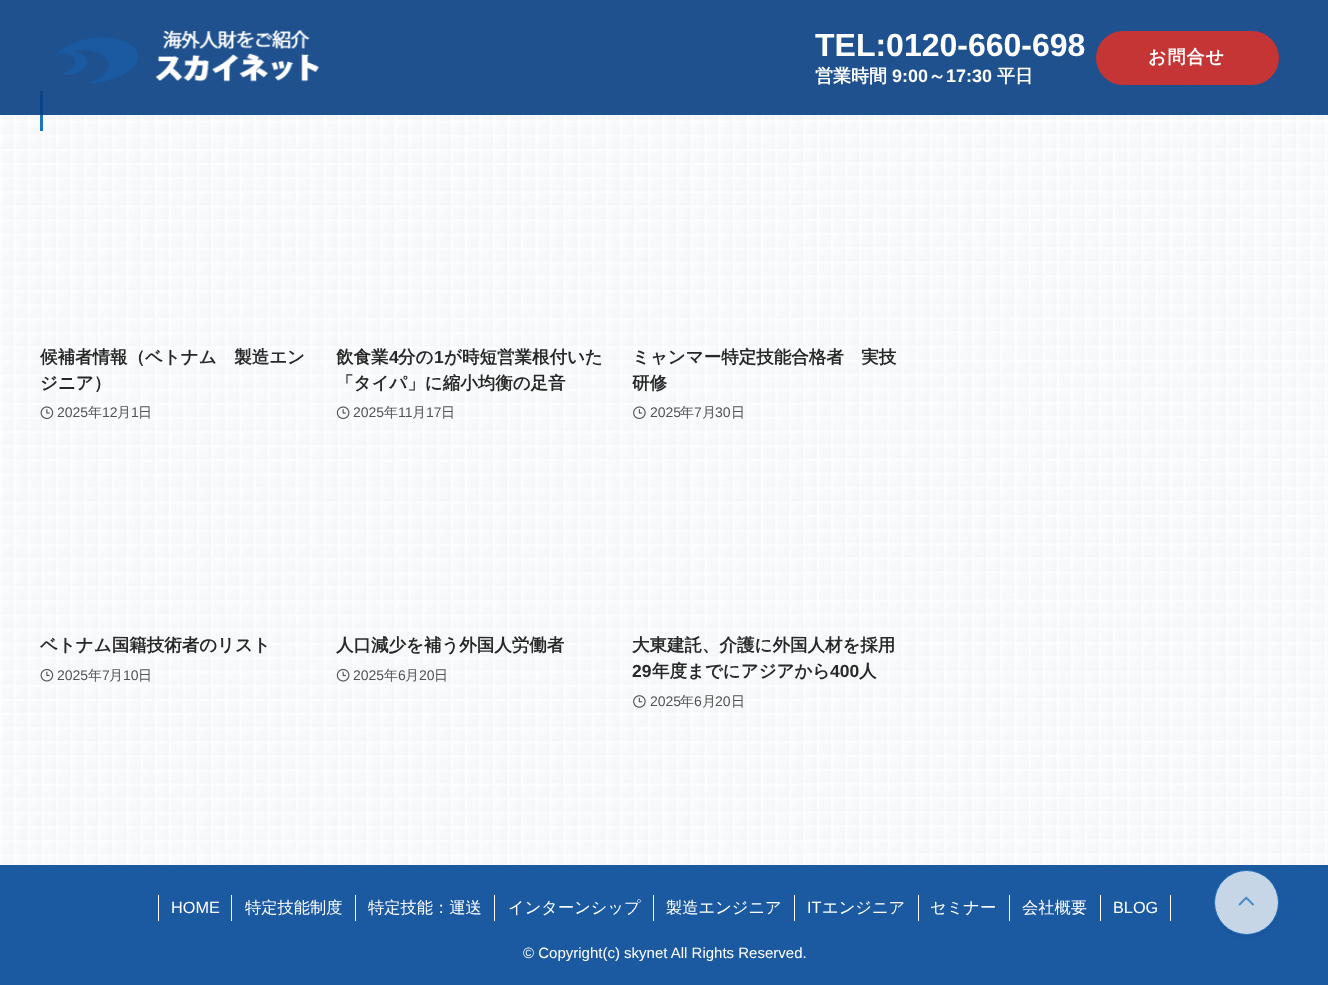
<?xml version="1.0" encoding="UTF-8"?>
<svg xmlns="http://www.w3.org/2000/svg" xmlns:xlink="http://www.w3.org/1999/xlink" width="1328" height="985">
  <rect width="100%" height="100%" fill="#fdfdfd" />
  <image x="1" y="0" width="1327" height="865" xlink:href="image1.png" />
  <rect x="40" y="91" width="3" height="40" fill="#1e73be" />
  <rect width="1328" height="115" fill="#073e82" fill-opacity="0.9" />
  <image x="55" y="30" width="265" height="53" xlink:href="image2.png" />
  <rect x="1096" y="31" width="183" height="54" rx="27" fill="#c63535" />
  <image x="40" y="406" width="14" height="13" xlink:href="image3.png" />
  <image x="336" y="406" width="14" height="13" xlink:href="image4.png" />
  <image x="633" y="406" width="13" height="13" xlink:href="image5.png" />
  <image x="40" y="668" width="14" height="14" xlink:href="image6.png" />
  <image x="336" y="668" width="14" height="14" xlink:href="image7.png" />
  <image x="633" y="695" width="13" height="13" xlink:href="image8.png" />
  <rect y="865" width="1328" height="120" fill="#1b59a0" />
  <rect x="231" y="895" width="1" height="26" fill="#ffffff" />
  <rect x="158" y="895" width="1" height="26" fill="#ffffff" />
  <rect x="355" y="895" width="1" height="26" fill="#ffffff" />
  <rect x="494" y="895" width="1" height="26" fill="#ffffff" />
  <rect x="653" y="895" width="1" height="26" fill="#ffffff" />
  <rect x="794" y="895" width="1" height="26" fill="#ffffff" />
  <rect x="918" y="895" width="1" height="26" fill="#ffffff" />
  <rect x="1009" y="895" width="1" height="26" fill="#ffffff" />
  <rect x="1100" y="895" width="1" height="26" fill="#ffffff" />
  <rect x="1170" y="895" width="1" height="26" fill="#ffffff" />
  <rect x="1219" y="880" width="55" height="55" rx="27.5" fill="#071628" fill-opacity="0.1" filter="blur(2.5px)" />
  <circle cx="1246.5" cy="902.5" r="32" fill="#c6d6e7" stroke="#1d6db7" />
  <image x="1238" y="896" width="16" height="10" xlink:href="image9.png" />
  <text x="815" y="56" style="font-family: Liberation Sans; font-size: 32px; font-weight: bold; fill: #ffffff">TEL:0120-660-698</text>
  <text x="815" y="82" style="font-family: WenQuanYi Zen Hei; font-size: 18px; font-weight: bold; fill: #ffffff">営業時間</text>
  <text x="892" y="82" style="font-family: Liberation Sans; font-size: 18px; font-weight: bold; fill: #ffffff">9:00</text>
  <text x="928" y="82" style="font-family: WenQuanYi Zen Hei; font-size: 18px; font-weight: bold; fill: #ffffff">～</text>
  <text x="946" y="82" style="font-family: Liberation Sans; font-size: 18px; font-weight: bold; fill: #ffffff">17:30</text>
  <text x="997" y="82" style="font-family: WenQuanYi Zen Hei; font-size: 18px; font-weight: bold; fill: #ffffff">平日</text>
  <text x="1148" y="63" style="font-family: WenQuanYi Zen Hei; font-size: 18px; font-weight: bold; letter-spacing: 1px; fill: #ffffff">お問合せ</text>
  <text x="40" y="363" style="font-family: WenQuanYi Zen Hei; font-size: 17.5px; font-weight: bold; fill: #282828">候補者情報（ベトナム　製造エン</text>
  <text x="40" y="389" style="font-family: WenQuanYi Zen Hei; font-size: 17.5px; font-weight: bold; fill: #282828">ジニア）</text>
  <text x="57" y="417" style="font-family: Liberation Sans; font-size: 14px; fill: #525252">2025</text>
  <text x="88" y="417" style="font-family: WenQuanYi Zen Hei; font-size: 14px; font-weight: 500; fill: #525252">年</text>
  <text x="102" y="417" style="font-family: Liberation Sans; font-size: 14px; fill: #525252">12</text>
  <text x="117" y="417" style="font-family: WenQuanYi Zen Hei; font-size: 14px; font-weight: 500; fill: #525252">月</text>
  <text x="131" y="417" style="font-family: Liberation Sans; font-size: 14px; fill: #525252">1</text>
  <text x="138" y="417" style="font-family: WenQuanYi Zen Hei; font-size: 14px; font-weight: 500; fill: #525252">日</text>
  <text x="336" y="363" style="font-family: WenQuanYi Zen Hei; font-size: 17.5px; font-weight: bold; fill: #282828">飲食業</text>
  <text x="389" y="363" style="font-family: Liberation Sans; font-size: 17.5px; font-weight: bold; fill: #282828">4</text>
  <text x="398" y="363" style="font-family: WenQuanYi Zen Hei; font-size: 17.5px; font-weight: bold; fill: #282828">分の</text>
  <text x="434" y="363" style="font-family: Liberation Sans; font-size: 17.5px; font-weight: bold; fill: #282828">1</text>
  <text x="444" y="363" style="font-family: WenQuanYi Zen Hei; font-size: 17.5px; font-weight: bold; fill: #282828">が時短営業根付いた</text>
  <text x="336" y="389" style="font-family: WenQuanYi Zen Hei; font-size: 17.5px; font-weight: bold; fill: #282828">「タイパ」に縮小均衡の足音</text>
  <text x="353" y="417" style="font-family: Liberation Sans; font-size: 14px; fill: #525252">2025</text>
  <text x="384" y="417" style="font-family: WenQuanYi Zen Hei; font-size: 14px; font-weight: 500; fill: #525252">年</text>
  <text x="398" y="417" style="font-family: Liberation Sans; font-size: 14px; fill: #525252">11</text>
  <text x="412" y="417" style="font-family: WenQuanYi Zen Hei; font-size: 14px; font-weight: 500; fill: #525252">月</text>
  <text x="426" y="417" style="font-family: Liberation Sans; font-size: 14px; fill: #525252">17</text>
  <text x="441" y="417" style="font-family: WenQuanYi Zen Hei; font-size: 14px; font-weight: 500; fill: #525252">日</text>
  <text x="632" y="363" style="font-family: WenQuanYi Zen Hei; font-size: 17.5px; font-weight: bold; fill: #282828">ミャンマー特定技能合格者　実技</text>
  <text x="632" y="389" style="font-family: WenQuanYi Zen Hei; font-size: 17.5px; font-weight: bold; fill: #282828">研修</text>
  <text x="650" y="417" style="font-family: Liberation Sans; font-size: 14px; fill: #525252">2025</text>
  <text x="680" y="417" style="font-family: WenQuanYi Zen Hei; font-size: 14px; font-weight: 500; fill: #525252">年</text>
  <text x="694" y="417" style="font-family: Liberation Sans; font-size: 14px; fill: #525252">7</text>
  <text x="702" y="417" style="font-family: WenQuanYi Zen Hei; font-size: 14px; font-weight: 500; fill: #525252">月</text>
  <text x="715" y="417" style="font-family: Liberation Sans; font-size: 14px; fill: #525252">30</text>
  <text x="731" y="417" style="font-family: WenQuanYi Zen Hei; font-size: 14px; font-weight: 500; fill: #525252">日</text>
  <text x="40" y="651" style="font-family: WenQuanYi Zen Hei; font-size: 17.5px; font-weight: bold; fill: #282828">ベトナム国籍技術者のリスト</text>
  <text x="57" y="680" style="font-family: Liberation Sans; font-size: 14px; fill: #525252">2025</text>
  <text x="88" y="680" style="font-family: WenQuanYi Zen Hei; font-size: 14px; font-weight: 500; fill: #525252">年</text>
  <text x="102" y="680" style="font-family: Liberation Sans; font-size: 14px; fill: #525252">7</text>
  <text x="109" y="680" style="font-family: WenQuanYi Zen Hei; font-size: 14px; font-weight: 500; fill: #525252">月</text>
  <text x="123" y="680" style="font-family: Liberation Sans; font-size: 14px; fill: #525252">10</text>
  <text x="138" y="680" style="font-family: WenQuanYi Zen Hei; font-size: 14px; font-weight: 500; fill: #525252">日</text>
  <text x="336" y="651" style="font-family: WenQuanYi Zen Hei; font-size: 17.5px; font-weight: bold; fill: #282828">人口減少を補う外国人労働者</text>
  <text x="353" y="680" style="font-family: Liberation Sans; font-size: 14px; fill: #525252">2025</text>
  <text x="384" y="680" style="font-family: WenQuanYi Zen Hei; font-size: 14px; font-weight: 500; fill: #525252">年</text>
  <text x="398" y="680" style="font-family: Liberation Sans; font-size: 14px; fill: #525252">6</text>
  <text x="405" y="680" style="font-family: WenQuanYi Zen Hei; font-size: 14px; font-weight: 500; fill: #525252">月</text>
  <text x="419" y="680" style="font-family: Liberation Sans; font-size: 14px; fill: #525252">20</text>
  <text x="434" y="680" style="font-family: WenQuanYi Zen Hei; font-size: 14px; font-weight: 500; fill: #525252">日</text>
  <text x="632" y="651" style="font-family: WenQuanYi Zen Hei; font-size: 17.5px; font-weight: bold; fill: #282828">大東建託、介護に外国人材を採用</text>
  <text x="632" y="677" style="font-family: Liberation Sans; font-size: 17.5px; font-weight: bold; fill: #282828">29</text>
  <text x="652" y="677" style="font-family: WenQuanYi Zen Hei; font-size: 17.5px; font-weight: bold; fill: #282828">年度までにアジアから</text>
  <text x="830" y="677" style="font-family: Liberation Sans; font-size: 17.5px; font-weight: bold; fill: #282828">400</text>
  <text x="859" y="677" style="font-family: WenQuanYi Zen Hei; font-size: 17.5px; font-weight: bold; fill: #282828">人</text>
  <text x="650" y="706" style="font-family: Liberation Sans; font-size: 14px; fill: #525252">2025</text>
  <text x="680" y="706" style="font-family: WenQuanYi Zen Hei; font-size: 14px; font-weight: 500; fill: #525252">年</text>
  <text x="694" y="706" style="font-family: Liberation Sans; font-size: 14px; fill: #525252">6</text>
  <text x="702" y="706" style="font-family: WenQuanYi Zen Hei; font-size: 14px; font-weight: 500; fill: #525252">月</text>
  <text x="715" y="706" style="font-family: Liberation Sans; font-size: 14px; fill: #525252">20</text>
  <text x="731" y="706" style="font-family: WenQuanYi Zen Hei; font-size: 14px; font-weight: 500; fill: #525252">日</text>
  <text x="171" y="913" style="font-family: Liberation Sans; font-size: 16.25px; fill: #ffffff">HOME</text>
  <text x="245" y="913" style="font-family: WenQuanYi Zen Hei; font-size: 16.25px; font-weight: 500; fill: #ffffff">特定技能制度</text>
  <text x="368" y="913" style="font-family: WenQuanYi Zen Hei; font-size: 16.25px; font-weight: 500; fill: #ffffff">特定技能：運送</text>
  <text x="508" y="913" style="font-family: WenQuanYi Zen Hei; font-size: 16.25px; font-weight: 500; fill: #ffffff">インターンシップ</text>
  <text x="666" y="913" style="font-family: WenQuanYi Zen Hei; font-size: 16.25px; font-weight: 500; fill: #ffffff">製造エンジニア</text>
  <text x="807" y="913" style="font-family: Liberation Sans; font-size: 16.25px; fill: #ffffff">IT</text>
  <text x="822" y="913" style="font-family: WenQuanYi Zen Hei; font-size: 16.25px; font-weight: 500; fill: #ffffff">エンジニア</text>
  <text x="930" y="913" style="font-family: WenQuanYi Zen Hei; font-size: 16.25px; font-weight: 500; fill: #ffffff">セミナー</text>
  <text x="1022" y="913" style="font-family: WenQuanYi Zen Hei; font-size: 16.25px; font-weight: 500; fill: #ffffff">会社概要</text>
  <text x="1113" y="913" style="font-family: Liberation Sans; font-size: 16.25px; fill: #ffffff">BLOG</text>
  <text x="523" y="958" style="font-family: Liberation Sans; font-size: 15px; fill: #ffffff">© Copyright(c) skynet All Rights Reserved.</text>
</svg>
